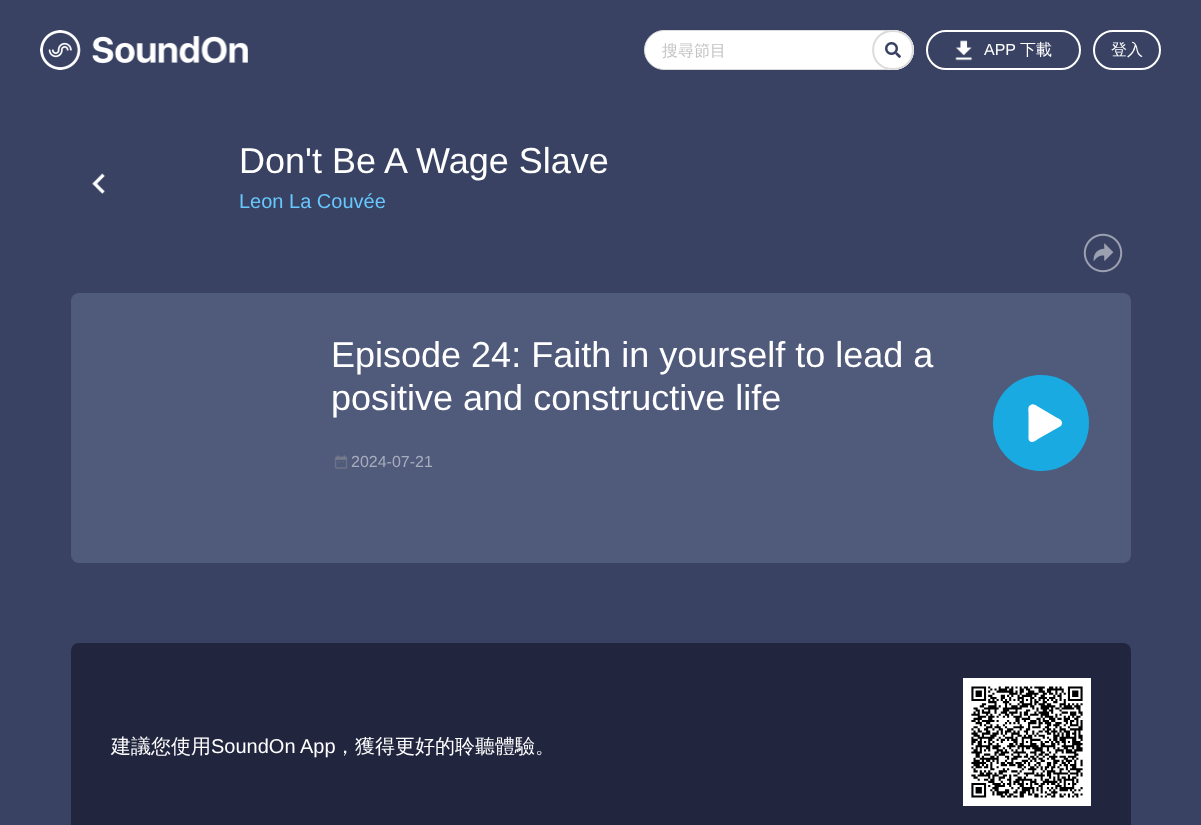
<?xml version="1.0" encoding="UTF-8"?>
<svg xmlns="http://www.w3.org/2000/svg" xmlns:xlink="http://www.w3.org/1999/xlink" width="1201" height="825">
  <rect width="100%" height="100%" fill="#394263" />
  <image x="40" y="30" width="208" height="40" xlink:href="image1.png" />
  <rect x="644.5" y="30.5" width="269" height="39" rx="19.5" fill="#ffffff" stroke="#dbdbdb" />
  <ellipse cx="893" cy="50" rx="21" ry="20" fill="#ffffff" />
  <path d="M 893 31 c 26.5 0 26.5 38 0 38 c -26.5 0 -26.5 -38 0 -38 z" fill="none" stroke="#dbdbdb" stroke-width="2" />
  <image x="885" y="42" width="16" height="16" xlink:href="image2.png" />
  <rect x="927" y="31" width="153" height="38" rx="19" fill="none" stroke="#ffffff" stroke-width="2" />
  <image x="955" y="40" width="17" height="21" xlink:href="image3.png" />
  <rect x="1094" y="31" width="66" height="38" rx="19" fill="none" stroke="#ffffff" stroke-width="2" />
  <image x="92" y="173" width="13" height="21" xlink:href="image4.png" />
  <image x="1083" y="233" width="40" height="40" xlink:href="image5.png" />
  <rect x="71" y="293" width="1060" height="270" rx="8" fill="#505a7b" />
  <image x="334" y="455" width="14" height="14" xlink:href="image6.png" />
  <path d="M 1041 375 c -27 0 -48 21 -48 48 c 0 27 21 48 48 48 c 27 0 48 -21 48 -48 c 0 -27 -21 -48 -48 -48 z" fill="#19aae1" />
  <path d="M 1060 426.5 l -22 12.5 c -2.5 2 -8 5.5 -9.5 0 v -26 c 0 -2.5 -1 -6.5 2 -8 c 2.5 -1.5 4.5 0 6.5 1 l 19.5 11.5 c 2 1 6 2.5 5.5 6 c 0 1 -1 2.5 -2 3 z" fill="#ffffff" />
  <rect x="71" y="643" width="1060" height="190" rx="8" fill="#21253e" />
  <image x="963" y="678" width="128" height="128" xlink:href="image7.png" />
  <text x="662" y="56" style="font-family: WenQuanYi Zen Hei; font-size: 16px; font-weight: 500; fill: #c3c3c3">搜尋節目</text>
  <text x="984" y="55" style="font-family: Liberation Sans; font-size: 16px; fill: #ffffff">APP</text>
  <text x="1020" y="55" style="font-family: WenQuanYi Zen Hei; font-size: 16px; font-weight: 500; fill: #ffffff">下載</text>
  <text x="1111" y="55" style="font-family: WenQuanYi Zen Hei; font-size: 16px; font-weight: 500; fill: #ffffff">登入</text>
  <text x="239" y="173" style="font-family: Liberation Sans; font-size: 36px; fill: #ffffff">Don't Be A Wage Slave</text>
  <text x="239" y="208" style="font-family: Liberation Sans; font-size: 20px; fill: #66c8fc">Leon La Couvée</text>
  <text x="331" y="367" style="font-family: Liberation Sans; font-size: 36px; fill: #ffffff">Episode 24: Faith in yourself to lead a</text>
  <text x="331" y="410" style="font-family: Liberation Sans; font-size: 36px; fill: #ffffff">positive and constructive life</text>
  <text x="351" y="467" style="font-family: Liberation Sans; font-size: 16px; fill: #a8adbd">2024-07-21</text>
  <text x="111" y="753" style="font-family: WenQuanYi Zen Hei; font-size: 20px; font-weight: 500; fill: #ffffff">建議您使用</text>
  <text x="211" y="753" style="font-family: Liberation Sans; font-size: 20px; fill: #ffffff">SoundOn App</text>
  <text x="335" y="753" style="font-family: WenQuanYi Zen Hei; font-size: 20px; font-weight: 500; fill: #ffffff">，獲得更好的聆聽體驗。</text>
</svg>
